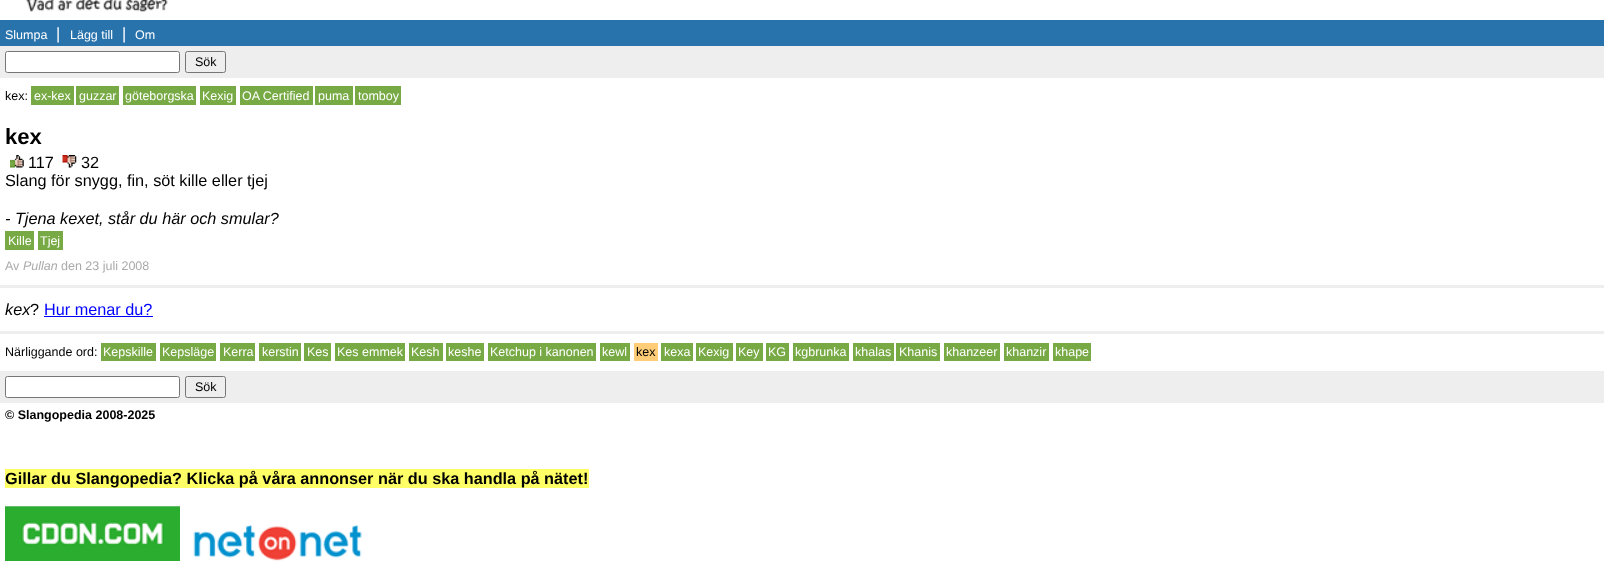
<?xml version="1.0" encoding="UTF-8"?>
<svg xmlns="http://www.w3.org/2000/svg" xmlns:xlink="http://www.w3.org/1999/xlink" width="1604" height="561">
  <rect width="100%" height="100%" fill="#ffffff" />
  <image x="25" y="0" width="143" height="12" xlink:href="image1.png" />
  <rect y="20" width="1604" height="26" fill="#2973ad" />
  <rect y="46" width="1604" height="32" fill="#eeeeee" />
  <rect x="5.5" y="51.5" width="174" height="21" rx="2" fill="#ffffff" stroke="#767676" />
  <rect x="185.5" y="51.5" width="40" height="21" rx="2" fill="none" stroke="#767676" />
  <rect x="31" y="86" width="43" height="19" fill="#77aa44" />
  <rect x="76" y="86" width="43" height="19" fill="#77aa44" />
  <rect x="123" y="86" width="73" height="19" fill="#77aa44" />
  <rect x="200" y="86" width="36" height="19" fill="#77aa44" />
  <rect x="240" y="86" width="73" height="19" fill="#77aa44" />
  <rect x="315" y="86" width="38" height="19" fill="#77aa44" />
  <rect x="355" y="86" width="46" height="19" fill="#77aa44" />
  <rect y="285" width="1604" height="3" fill="#eeeeee" />
  <image x="10" y="155" width="14" height="13" xlink:href="image2.png" />
  <image x="62" y="155" width="15" height="13" xlink:href="image3.png" />
  <rect x="5" y="231" width="29" height="19" fill="#77aa44" />
  <rect x="38" y="231" width="25" height="19" fill="#77aa44" />
  <rect y="331" width="1604" height="3" fill="#eeeeee" />
  <rect x="44" y="316" width="109" height="1" fill="#0000ff" />
  <rect x="101" y="343" width="55" height="18" fill="#77aa44" />
  <rect x="160" y="343" width="56" height="18" fill="#77aa44" />
  <rect x="220" y="343" width="35" height="18" fill="#77aa44" />
  <rect x="259" y="343" width="42" height="18" fill="#77aa44" />
  <rect x="304" y="343" width="27" height="18" fill="#77aa44" />
  <rect x="335" y="343" width="70" height="18" fill="#77aa44" />
  <rect x="409" y="343" width="34" height="18" fill="#77aa44" />
  <rect x="446" y="343" width="38" height="18" fill="#77aa44" />
  <rect x="488" y="343" width="108" height="18" fill="#77aa44" />
  <rect x="600" y="343" width="30" height="18" fill="#77aa44" />
  <rect x="634" y="343" width="24" height="18" fill="#ffcc77" />
  <rect x="661" y="343" width="32" height="18" fill="#77aa44" />
  <rect x="696" y="343" width="37" height="18" fill="#77aa44" />
  <rect x="736" y="343" width="27" height="18" fill="#77aa44" />
  <rect x="766" y="343" width="23" height="18" fill="#77aa44" />
  <rect x="793" y="343" width="56" height="18" fill="#77aa44" />
  <rect x="853" y="343" width="41" height="18" fill="#77aa44" />
  <rect x="896" y="343" width="44" height="18" fill="#77aa44" />
  <rect x="944" y="343" width="56" height="18" fill="#77aa44" />
  <rect x="1004" y="343" width="45" height="18" fill="#77aa44" />
  <rect x="1053" y="343" width="38" height="18" fill="#77aa44" />
  <rect y="371" width="1604" height="32" fill="#eeeeee" />
  <rect x="5.5" y="376.5" width="174" height="21" rx="2" fill="#ffffff" stroke="#767676" />
  <rect x="185.5" y="376.5" width="40" height="21" rx="2" fill="none" stroke="#767676" />
  <rect x="5" y="469" width="584" height="19" fill="#ffff66" />
  <image x="5" y="506" width="175" height="55" xlink:href="image4.png" />
  <image x="193" y="524" width="169" height="37" xlink:href="image5.png" />
  <text x="5" y="39" style="font-family: Liberation Sans; font-size: 12.5px; fill: #ffffff">Slumpa</text>
  <text x="56" y="39" style="font-family: Liberation Sans; font-size: 16.25px; fill: #ffffff">|</text>
  <text x="70" y="39" style="font-family: Liberation Sans; font-size: 12.5px; fill: #ffffff">Lägg till</text>
  <text x="122" y="39" style="font-family: Liberation Sans; font-size: 16.25px; fill: #ffffff">|</text>
  <text x="135" y="39" style="font-family: Liberation Sans; font-size: 12.5px; fill: #ffffff">Om</text>
  <text x="195" y="66" style="font-family: Liberation Sans; font-size: 12.5px; fill: #000000">Sök</text>
  <text x="5" y="100" style="font-family: Liberation Sans; font-size: 12.5px; fill: #000000">kex:</text>
  <text x="34" y="100" style="font-family: Liberation Sans; font-size: 12.5px; fill: #ffffff">ex-kex</text>
  <text x="79" y="100" style="font-family: Liberation Sans; font-size: 12.5px; fill: #ffffff">guzzar</text>
  <text x="125" y="100" style="font-family: Liberation Sans; font-size: 12.5px; fill: #ffffff">göteborgska</text>
  <text x="202" y="100" style="font-family: Liberation Sans; font-size: 12.5px; fill: #ffffff">Kexig</text>
  <text x="242" y="100" style="font-family: Liberation Sans; font-size: 12.5px; fill: #ffffff">OA Certified</text>
  <text x="318" y="100" style="font-family: Liberation Sans; font-size: 12.5px; fill: #ffffff">puma</text>
  <text x="358" y="100" style="font-family: Liberation Sans; font-size: 12.5px; fill: #ffffff">tomboy</text>
  <text x="5" y="144" style="font-family: Liberation Sans; font-size: 22px; font-weight: bold; fill: #000000">kex</text>
  <text x="28" y="168" style="font-family: Liberation Sans; font-size: 16.25px; fill: #000000">117</text>
  <text x="81" y="168" style="font-family: Liberation Sans; font-size: 16.25px; fill: #000000">32</text>
  <text x="5" y="186" style="font-family: Liberation Sans; font-size: 16.25px; fill: #000000">Slang för snygg, fin, söt kille eller tjej</text>
  <text x="5" y="224" style="font-family: Liberation Sans; font-size: 16.25px; font-style: italic; fill: #000000">- Tjena kexet, står du här och smular?</text>
  <text x="8" y="245" style="font-family: Liberation Sans; font-size: 12.5px; fill: #ffffff">Kille</text>
  <text x="40" y="245" style="font-family: Liberation Sans; font-size: 12.5px; fill: #ffffff">Tjej</text>
  <text x="5" y="270" style="font-family: Liberation Sans; font-size: 12.5px; fill: #aaaaaa">Av</text>
  <text x="23" y="270" style="font-family: Liberation Sans; font-size: 12.5px; font-style: italic; fill: #aaaaaa">Pullan</text>
  <text x="61" y="270" style="font-family: Liberation Sans; font-size: 12.5px; fill: #aaaaaa">den 23 juli 2008</text>
  <text x="5" y="315" style="font-family: Liberation Sans; font-size: 16.25px; font-style: italic; fill: #000000">kex</text>
  <text x="30" y="315" style="font-family: Liberation Sans; font-size: 16.25px; fill: #000000">?</text>
  <text x="44" y="315" style="font-family: Liberation Sans; font-size: 16.25px; fill: #0000ff">Hur menar du?</text>
  <text x="5" y="356" style="font-family: Liberation Sans; font-size: 12.5px; fill: #000000">Närliggande ord:</text>
  <text x="103" y="356" style="font-family: Liberation Sans; font-size: 12.5px; fill: #ffffff">Kepskille</text>
  <text x="162" y="356" style="font-family: Liberation Sans; font-size: 12.5px; fill: #ffffff">Kepsläge</text>
  <text x="223" y="356" style="font-family: Liberation Sans; font-size: 12.5px; fill: #ffffff">Kerra</text>
  <text x="262" y="356" style="font-family: Liberation Sans; font-size: 12.5px; fill: #ffffff">kerstin</text>
  <text x="307" y="356" style="font-family: Liberation Sans; font-size: 12.5px; fill: #ffffff">Kes</text>
  <text x="337" y="356" style="font-family: Liberation Sans; font-size: 12.5px; fill: #ffffff">Kes emmek</text>
  <text x="411" y="356" style="font-family: Liberation Sans; font-size: 12.5px; fill: #ffffff">Kesh</text>
  <text x="448" y="356" style="font-family: Liberation Sans; font-size: 12.5px; fill: #ffffff">keshe</text>
  <text x="490" y="356" style="font-family: Liberation Sans; font-size: 12.5px; fill: #ffffff">Ketchup i kanonen</text>
  <text x="602" y="356" style="font-family: Liberation Sans; font-size: 12.5px; fill: #ffffff">kewl</text>
  <text x="636" y="356" style="font-family: Liberation Sans; font-size: 12.5px; fill: #000000">kex</text>
  <text x="664" y="356" style="font-family: Liberation Sans; font-size: 12.5px; fill: #ffffff">kexa</text>
  <text x="698" y="356" style="font-family: Liberation Sans; font-size: 12.5px; fill: #ffffff">Kexig</text>
  <text x="738" y="356" style="font-family: Liberation Sans; font-size: 12.5px; fill: #ffffff">Key</text>
  <text x="768" y="356" style="font-family: Liberation Sans; font-size: 12.5px; fill: #ffffff">KG</text>
  <text x="795" y="356" style="font-family: Liberation Sans; font-size: 12.5px; fill: #ffffff">kgbrunka</text>
  <text x="855" y="356" style="font-family: Liberation Sans; font-size: 12.5px; fill: #ffffff">khalas</text>
  <text x="899" y="356" style="font-family: Liberation Sans; font-size: 12.5px; fill: #ffffff">Khanis</text>
  <text x="946" y="356" style="font-family: Liberation Sans; font-size: 12.5px; fill: #ffffff">khanzeer</text>
  <text x="1006" y="356" style="font-family: Liberation Sans; font-size: 12.5px; fill: #ffffff">khanzir</text>
  <text x="1055" y="356" style="font-family: Liberation Sans; font-size: 12.5px; fill: #ffffff">khape</text>
  <text x="195" y="391" style="font-family: Liberation Sans; font-size: 12.5px; fill: #000000">Sök</text>
  <text x="5" y="419" style="font-family: Liberation Sans; font-size: 12.5px; font-weight: bold; fill: #000000">© Slangopedia 2008-2025</text>
  <text x="5" y="484" style="font-family: Liberation Sans; font-size: 16.25px; font-weight: bold; fill: #000000">Gillar du Slangopedia? Klicka på våra annonser när du ska handla på nätet!</text>
</svg>
